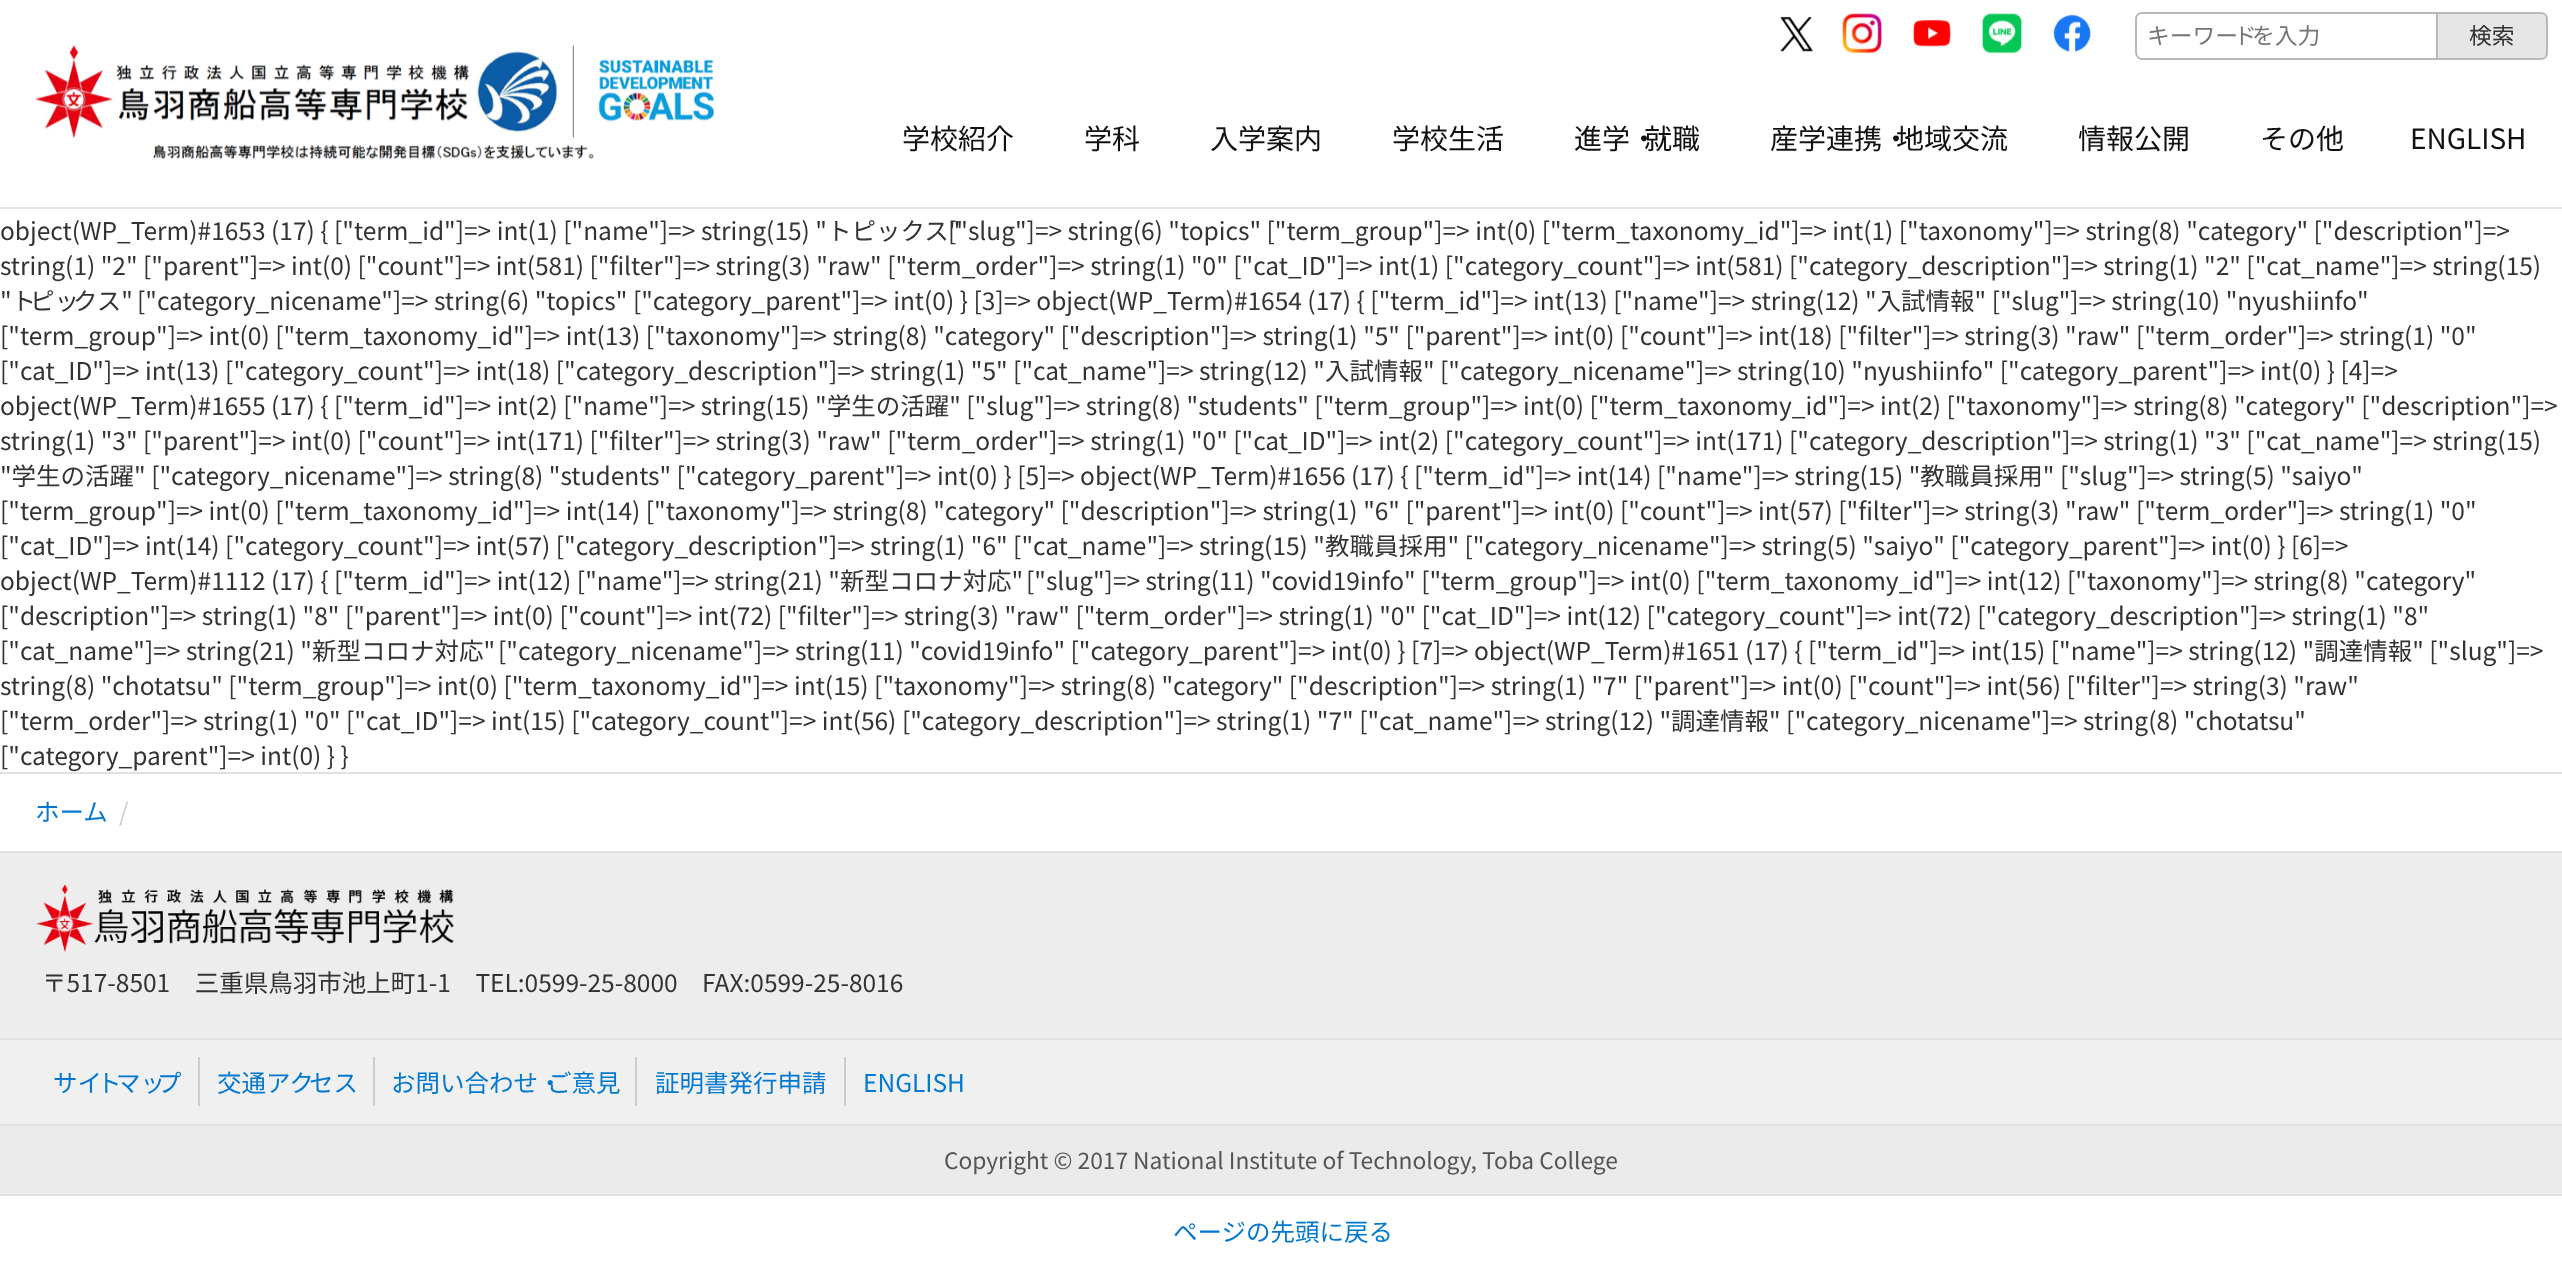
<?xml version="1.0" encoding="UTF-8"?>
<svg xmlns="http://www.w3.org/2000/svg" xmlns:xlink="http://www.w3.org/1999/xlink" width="2562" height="1263">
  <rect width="100%" height="100%" fill="#ffffff" />
  <rect y="207" width="2562" height="2" fill="#e1e1e1" />
  <image x="35" y="45" width="679" height="115" xlink:href="image1.png" />
  <image x="1780" y="16" width="33" height="36" xlink:href="image2.png" />
  <image x="1842" y="13" width="40" height="41" xlink:href="image3.png" />
  <image x="1913" y="20" width="38" height="27" xlink:href="image4.png" />
  <image x="1982" y="13" width="40" height="41" xlink:href="image5.png" />
  <image x="2053" y="14" width="38" height="39" xlink:href="image6.png" />
  <path d="M 2142 12 h 294 v 48 h -294 c -4 0 -7 -4 -7 -8 v -33 c 0 -4 3 -7 7 -7 z m 0 2 h 294 v 44 h -294 c -3 0 -5 -3 -5 -6 v -33 c 0 -3 2 -5 5 -5 z" fill="#b9b9b9" fill-rule="evenodd" />
  <path d="M 2437 13 h 104 c 3.5 0 6 2.5 6 6 v 34 c 0 3.5 -2.5 6 -6 6 h -104 z" fill="#e6e6e6" stroke="#b9b9b9" stroke-width="2" />
  <rect y="772" width="2562" height="2" fill="#e1e1e1" />
  <rect y="853" width="2562" height="185" fill="#ededed" />
  <rect y="851" width="2562" height="2" fill="#e1e1e1" />
  <image x="36" y="884" width="418" height="68" xlink:href="image7.png" />
  <rect y="1040" width="2562" height="84" fill="#f0f0f0" />
  <rect y="1038" width="2562" height="2" fill="#e1e1e1" />
  <rect x="198" y="1057" width="2" height="49" fill="#cccccc" />
  <rect x="373" y="1057" width="2" height="49" fill="#cccccc" />
  <rect x="635" y="1057" width="2" height="49" fill="#cccccc" />
  <rect x="844" y="1057" width="2" height="49" fill="#cccccc" />
  <rect y="1126" width="2562" height="68" fill="#ebebeb" />
  <rect y="1124" width="2562" height="2" fill="#e1e1e1" />
  <rect y="1194" width="2562" height="2" fill="#e1e1e1" />
  <text x="2147" y="44" style="font-family: Noto Sans JP; font-size: 22.75px; fill: #757575">キーワー</text>
  <text x="2234" y="44" style="font-family: Noto Sans JP; font-size: 22.75px; fill: #757575">ド</text>
  <text x="2252" y="44" style="font-family: Noto Sans JP; font-size: 22.75px; fill: #757575">を入力</text>
  <text x="2469" y="44" style="font-family: Noto Sans JP; font-size: 22.75px; fill: #333333">検索</text>
  <text x="902" y="149" style="font-family: Noto Sans JP; font-size: 28px; fill: #111111">学校紹介</text>
  <text x="1084" y="149" style="font-family: Noto Sans JP; font-size: 28px; fill: #111111">学科</text>
  <text x="1210" y="149" style="font-family: Noto Sans JP; font-size: 28px; fill: #111111">入学案内</text>
  <text x="1392" y="149" style="font-family: Noto Sans JP; font-size: 28px; fill: #111111">学校生活</text>
  <text x="1574" y="149" style="font-family: Noto Sans JP; font-size: 28px; fill: #111111">進学・</text>
  <text x="1644" y="149" style="font-family: Noto Sans JP; font-size: 28px; fill: #111111">就職</text>
  <text x="1770" y="149" style="font-family: Noto Sans JP; font-size: 28px; fill: #111111">産学連携・</text>
  <text x="1896" y="149" style="font-family: Noto Sans JP; font-size: 28px; fill: #111111">地域交流</text>
  <text x="2078" y="149" style="font-family: Noto Sans JP; font-size: 28px; fill: #111111">情報公開</text>
  <text x="2260" y="149" style="font-family: Noto Sans JP; font-size: 28px; fill: #111111">その他</text>
  <text x="2410" y="149" style="font-family: Noto Sans JP; font-size: 28px; fill: #111111">ENGLISH</text>
  <text x="0" y="240" style="font-family: Noto Sans JP; font-size: 24.5px; fill: #333333">object(WP_Term)#1653 (17) { ["term_id"]=&gt; int(1) ["name"]=&gt;</text>
  <text x="701" y="240" style="font-family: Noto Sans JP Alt; font-size: 24.5px; fill: #333333">string(15) "トピックス"</text>
  <text x="948" y="240" style="font-family: Noto Sans JP; font-size: 24.5px; fill: #333333">["slug"]=&gt; string(6) "topics" ["term_group"]=&gt; int(0) ["term_taxonomy_id"]=&gt; int(1) ["taxonomy"]=&gt; string(8) "category" ["description"]=&gt;</text>
  <text x="0" y="275" style="font-family: Noto Sans JP; font-size: 24.5px; fill: #333333">string(1) "2" ["parent"]=&gt; int(0) ["count"]=&gt; int(581) ["filter"]=&gt; string(3) "raw" ["term_order"]=&gt; string(1) "0" ["cat_ID"]=&gt; int(1) ["category_count"]=&gt; int(581) ["category_description"]=&gt; string(1) "2" ["cat_name"]=&gt; string(15)</text>
  <text x="0" y="310" style="font-family: Noto Sans JP; font-size: 24.5px; fill: #333333">"ト</text>
  <text x="30" y="310" style="font-family: Noto Sans JP; font-size: 24.5px; fill: #333333">ピッ</text>
  <text x="73" y="310" style="font-family: Noto Sans JP; font-size: 24.5px; fill: #333333">クス"</text>
  <text x="137" y="310" style="font-family: Noto Sans JP; font-size: 24.5px; fill: #333333">["category_nicename"]=&gt; string(6) "topics" ["category_parent"]=&gt; int(0) } [3]=&gt; object(WP_Term)#1654 (17) { ["term_id"]=&gt; int(13) ["name"]=&gt; string(12) "入試情報" ["slug"]=&gt; string(10) "nyushiinfo"</text>
  <text x="0" y="345" style="font-family: Noto Sans JP; font-size: 24.5px; fill: #333333">["term_group"]=&gt; int(0) ["term_taxonomy_id"]=&gt; int(13) ["taxonomy"]=&gt; string(8) "category" ["description"]=&gt; string(1) "5" ["parent"]=&gt; int(0) ["count"]=&gt; int(18) ["filter"]=&gt; string(3) "raw" ["term_order"]=&gt; string(1) "0"</text>
  <text x="0" y="380" style="font-family: Noto Sans JP; font-size: 24.5px; fill: #333333">["cat_ID"]=&gt; int(13) ["category_count"]=&gt; int(18) ["category_description"]=&gt; string(1) "5" ["cat_name"]=&gt; string(12) "入試情報" ["category_nicename"]=&gt; string(10) "nyushiinfo" ["category_parent"]=&gt; int(0) } [4]=&gt;</text>
  <text x="0" y="415" style="font-family: Noto Sans JP; font-size: 24.5px; fill: #333333">object(WP_Term)#1655 (17) { ["term_id"]=&gt; int(2) ["name"]=&gt; string(15) "学生の活躍" ["slug"]=&gt; string(8) "students" ["term_group"]=&gt; int(0) ["term_taxonomy_id"]=&gt; int(2) ["taxonomy"]=&gt; string(8) "category" ["description"]=&gt;</text>
  <text x="0" y="450" style="font-family: Noto Sans JP; font-size: 24.5px; fill: #333333">string(1) "3" ["parent"]=&gt; int(0) ["count"]=&gt; int(171) ["filter"]=&gt; string(3) "raw" ["term_order"]=&gt; string(1) "0" ["cat_ID"]=&gt; int(2) ["category_count"]=&gt; int(171) ["category_description"]=&gt; string(1) "3" ["cat_name"]=&gt; string(15)</text>
  <text x="0" y="485" style="font-family: Noto Sans JP; font-size: 24.5px; fill: #333333">"学生の活躍" ["category_nicename"]=&gt; string(8) "students" ["category_parent"]=&gt; int(0) } [5]=&gt; object(WP_Term)#1656 (17) { ["term_id"]=&gt; int(14) ["name"]=&gt; string(15) "教職員採用" ["slug"]=&gt; string(5) "saiyo"</text>
  <text x="0" y="520" style="font-family: Noto Sans JP; font-size: 24.5px; fill: #333333">["term_group"]=&gt; int(0) ["term_taxonomy_id"]=&gt; int(14) ["taxonomy"]=&gt; string(8) "category" ["description"]=&gt; string(1) "6" ["parent"]=&gt; int(0) ["count"]=&gt; int(57) ["filter"]=&gt; string(3) "raw" ["term_order"]=&gt; string(1) "0"</text>
  <text x="0" y="555" style="font-family: Noto Sans JP; font-size: 24.5px; fill: #333333">["cat_ID"]=&gt; int(14) ["category_count"]=&gt; int(57) ["category_description"]=&gt; string(1) "6" ["cat_name"]=&gt; string(15) "教職員採用" ["category_nicename"]=&gt; string(5) "saiyo" ["category_parent"]=&gt; int(0) } [6]=&gt;</text>
  <text x="0" y="590" style="font-family: Noto Sans JP; font-size: 24.5px; fill: #333333">object(WP_Term)#1112 (17) { ["term_id"]=&gt; int(12) ["name"]=&gt;</text>
  <text x="714" y="590" style="font-family: Noto Sans JP Alt; font-size: 24.5px; fill: #333333">string(21) "新型コロナ対応"</text>
  <text x="1026" y="590" style="font-family: Noto Sans JP; font-size: 24.5px; fill: #333333">["slug"]=&gt; string(11) "covid19info" ["term_group"]=&gt; int(0) ["term_taxonomy_id"]=&gt; int(12) ["taxonomy"]=&gt; string(8) "category"</text>
  <text x="0" y="625" style="font-family: Noto Sans JP; font-size: 24.5px; fill: #333333">["description"]=&gt; string(1) "8" ["parent"]=&gt; int(0) ["count"]=&gt; int(72) ["filter"]=&gt; string(3) "raw" ["term_order"]=&gt; string(1) "0" ["cat_ID"]=&gt; int(12) ["category_count"]=&gt; int(72) ["category_description"]=&gt; string(1) "8"</text>
  <text x="0" y="660" style="font-family: Noto Sans JP; font-size: 24.5px; fill: #333333">["cat_name"]=&gt;</text>
  <text x="186" y="660" style="font-family: Noto Sans JP Alt; font-size: 24.5px; fill: #333333">string(21) "新型コロナ対応"</text>
  <text x="498" y="660" style="font-family: Noto Sans JP; font-size: 24.5px; fill: #333333">["category_nicename"]=&gt; string(11) "covid19info" ["category_parent"]=&gt; int(0) } [7]=&gt; object(WP_Term)#1651 (17) { ["term_id"]=&gt; int(15) ["name"]=&gt; string(12) "調達情報" ["slug"]=&gt;</text>
  <text x="0" y="695" style="font-family: Noto Sans JP; font-size: 24.5px; fill: #333333">string(8) "chotatsu" ["term_group"]=&gt; int(0) ["term_taxonomy_id"]=&gt; int(15) ["taxonomy"]=&gt; string(8) "category" ["description"]=&gt; string(1) "7" ["parent"]=&gt; int(0) ["count"]=&gt; int(56) ["filter"]=&gt; string(3) "raw"</text>
  <text x="0" y="730" style="font-family: Noto Sans JP; font-size: 24.5px; fill: #333333">["term_order"]=&gt; string(1) "0" ["cat_ID"]=&gt; int(15) ["category_count"]=&gt; int(56) ["category_description"]=&gt; string(1) "7" ["cat_name"]=&gt; string(12) "調達情報" ["category_nicename"]=&gt; string(8) "chotatsu"</text>
  <text x="0" y="765" style="font-family: Noto Sans JP; font-size: 24.5px; fill: #333333">["category_parent"]=&gt; int(0) } }</text>
  <text x="35" y="821" style="font-family: Noto Sans JP; font-size: 24.5px; fill: #0378d0">ホーム</text>
  <text x="119" y="821" style="font-family: Noto Sans JP; font-size: 24.5px; fill: #cccccc">/</text>
  <text x="42" y="992" style="font-family: Noto Sans JP Alt; font-size: 24.5px; fill: #333333">〒517-8501　三重県鳥羽市池上町1-1　TEL:0599-25-8000　FAX:0599-25-8016</text>
  <text x="53" y="1092" style="font-family: Noto Sans JP; font-size: 24.5px; fill: #0378d0">サイ</text>
  <text x="97" y="1092" style="font-family: Noto Sans JP; font-size: 24.5px; fill: #0378d0">ト</text>
  <text x="116" y="1092" style="font-family: Noto Sans JP; font-size: 24.5px; fill: #0378d0">マッ</text>
  <text x="157" y="1092" style="font-family: Noto Sans JP; font-size: 24.5px; fill: #0378d0">プ</text>
  <text x="217" y="1092" style="font-family: Noto Sans JP; font-size: 24.5px; fill: #0378d0">交通アク</text>
  <text x="309" y="1092" style="font-family: Noto Sans JP; font-size: 24.5px; fill: #0378d0">セス</text>
  <text x="391" y="1092" style="font-family: Noto Sans JP; font-size: 24.5px; fill: #0378d0">お問い合わせ・</text>
  <text x="547" y="1092" style="font-family: Noto Sans JP; font-size: 24.5px; fill: #0378d0">ご意見</text>
  <text x="655" y="1092" style="font-family: Noto Sans JP; font-size: 24.5px; fill: #0378d0">証明書発行申請</text>
  <text x="863" y="1092" style="font-family: Noto Sans JP; font-size: 24.5px; fill: #0378d0">ENGLISH</text>
  <text x="944" y="1169" style="font-family: Noto Sans JP; font-size: 22.75px; fill: #555555">Copyright © 2017 National Institute of Technology, Toba College</text>
  <text x="1173" y="1241" style="font-family: Noto Sans JP; font-size: 24.5px; fill: #0378d0">ページの先頭に戻る</text>
</svg>
